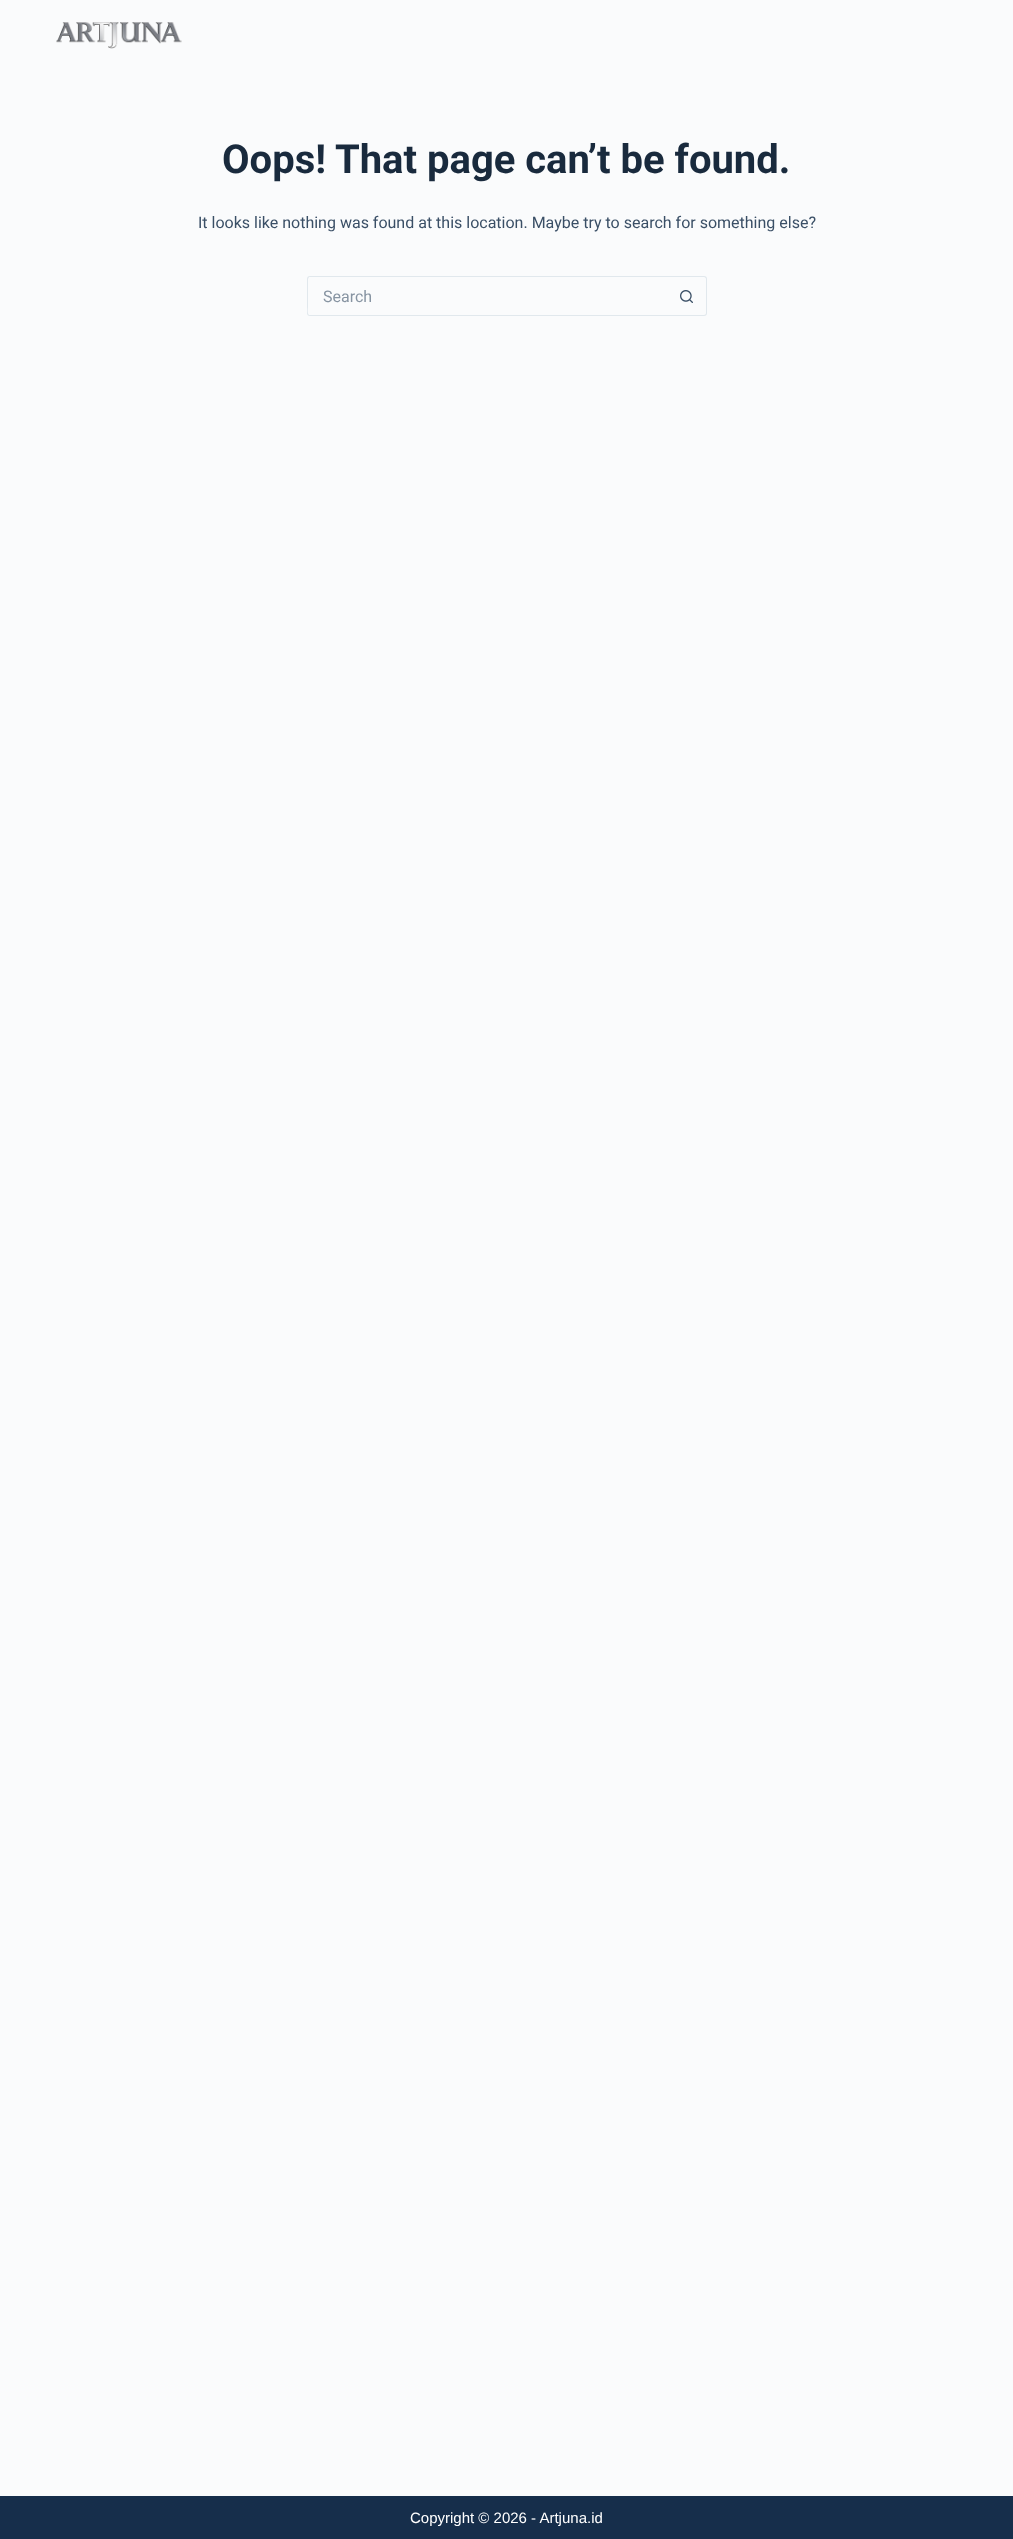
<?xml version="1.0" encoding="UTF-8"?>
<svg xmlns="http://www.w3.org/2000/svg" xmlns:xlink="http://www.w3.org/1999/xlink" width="1013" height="2539">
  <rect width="100%" height="100%" fill="#fafbfc" />
  <image x="56" y="22" width="126" height="27" xlink:href="image1.png" />
  <path d="M 310 276 h 357 v 40 h -357 c -2 0 -3 -1 -3 -3 v -34 c 0 -2 1 -3 3 -3 z m 0 1 h 357 v 38 h -358 c -2 -2 -1 -7 -1 -8 v -28 l 1 -2 z" fill="#e1e8ed" fill-rule="evenodd" />
  <path d="M 667 276 h 37 c 2 0 3 1 3 3 v 34 c 0 2 -1 3 -3 3 h -37 z m 0 1 h 37 c 1 0 2 1 2 2 v 34 c 0 1 -1 2 -2 2 h -37 z" fill="#e1e8ed" fill-rule="evenodd" />
  <image x="680" y="290" width="13" height="13" xlink:href="image2.png" />
  <rect y="2496" width="1013" height="43" fill="#162e4b" />
  <text x="222" y="173" style="font-family: Roboto; font-size: 40px; font-weight: bold; fill: #192a3d">Oops! That page can’t be found.</text>
  <text x="198" y="228" style="font-family: Roboto; font-size: 16px; fill: #3a4f66">It looks like nothing was found at this location. Maybe try to search for something else?</text>
  <text x="323" y="302" style="font-family: Roboto; font-size: 16px; fill: #8794a2">Search</text>
  <text x="410" y="2523" style="font-family: Liberation Sans; font-size: 15px; fill: #ffffff">Copyright © 2026 - Artjuna.id</text>
</svg>
